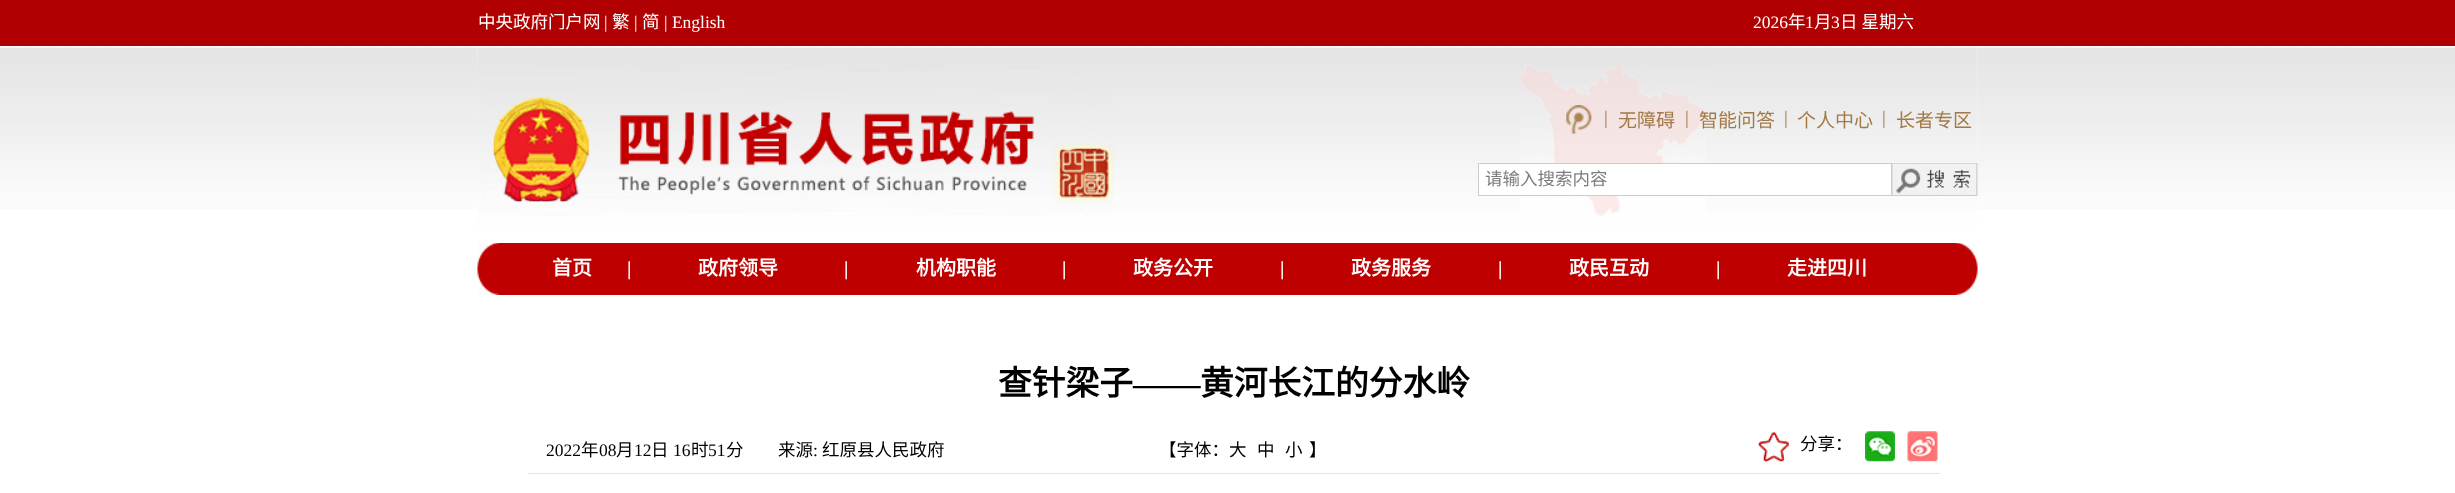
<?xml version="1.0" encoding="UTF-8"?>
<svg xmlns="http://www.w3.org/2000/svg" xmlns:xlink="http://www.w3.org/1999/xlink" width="2455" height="493">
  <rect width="100%" height="100%" fill="#ffffff" />
  <rect width="2455" height="46" fill="#b10001" />
  <image x="0" y="47" width="478" height="162" xlink:href="image1.png" />
  <image x="477" y="47" width="1501" height="183" xlink:href="image2.png" />
  <image x="477" y="57" width="637" height="173" xlink:href="image3.png" />
  <image x="1520" y="64" width="186" height="152" xlink:href="image4.png" />
  <image x="1566" y="105" width="26" height="29" xlink:href="image5.png" />
  <rect x="1478" y="163" width="500" height="33" fill="#cccccc" />
  <rect x="1479" y="164" width="412" height="31" fill="#ffffff" />
  <image x="1892" y="163" width="85" height="32" xlink:href="image6.png" />
  <image x="1977" y="47" width="478" height="162" xlink:href="image7.png" />
  <image x="477" y="243" width="43" height="52" xlink:href="image8.png" />
  <rect x="520" y="243" width="1410" height="52" fill="#be0000" />
  <image x="1930" y="243" width="48" height="52" xlink:href="image9.png" />
  <rect x="528" y="473" width="1412" height="1" fill="#e5e5e5" />
  <image x="1758" y="432" width="31" height="30" xlink:href="image10.png" />
  <image x="1865" y="431" width="30" height="31" xlink:href="image11.png" />
  <image x="1907" y="431" width="31" height="31" xlink:href="image12.png" />
  <text x="478" y="28" style="font-family: Noto Sans CJK SC; font-size: 17.5px; fill: #ffffff">中央政府门户网</text>
  <text x="604" y="28" style="font-family: Liberation Serif; font-size: 17.5px; fill: #ffffff">|</text>
  <text x="612" y="28" style="font-family: Noto Sans CJK SC; font-size: 17.5px; fill: #ffffff">繁</text>
  <text x="634" y="28" style="font-family: Liberation Serif; font-size: 17.5px; fill: #ffffff">|</text>
  <text x="642" y="28" style="font-family: Noto Sans CJK SC; font-size: 17.5px; fill: #ffffff">简</text>
  <text x="664" y="28" style="font-family: Liberation Serif; font-size: 17.5px; fill: #ffffff">| English</text>
  <text x="1753" y="28" style="font-family: Liberation Serif; font-size: 17.5px; fill: #ffffff">2026</text>
  <text x="1788" y="28" style="font-family: Noto Sans CJK SC; font-size: 17.5px; fill: #ffffff">年</text>
  <text x="1805" y="28" style="font-family: Liberation Serif; font-size: 17.5px; fill: #ffffff">1</text>
  <text x="1814" y="28" style="font-family: Noto Sans CJK SC; font-size: 17.5px; fill: #ffffff">月</text>
  <text x="1831" y="28" style="font-family: Liberation Serif; font-size: 17.5px; fill: #ffffff">3</text>
  <text x="1840" y="28" style="font-family: Noto Sans CJK SC; font-size: 17.5px; fill: #ffffff">日 星期六</text>
  <text x="1604" y="124" style="font-family: Liberation Serif; font-size: 19px; fill: #a37a46">|</text>
  <text x="1618" y="127" style="font-family: Noto Sans CJK SC; font-size: 19px; fill: #a37a46">无障碍</text>
  <text x="1685" y="124" style="font-family: Liberation Serif; font-size: 19px; fill: #a37a46">|</text>
  <text x="1699" y="127" style="font-family: Noto Sans CJK SC; font-size: 19px; fill: #a37a46">智能问答</text>
  <text x="1784" y="124" style="font-family: Liberation Serif; font-size: 19px; fill: #a37a46">|</text>
  <text x="1797" y="127" style="font-family: Noto Sans CJK SC; font-size: 19px; fill: #a37a46">个人中心</text>
  <text x="1882" y="124" style="font-family: Liberation Serif; font-size: 19px; fill: #a37a46">|</text>
  <text x="1896" y="127" style="font-family: Noto Sans CJK SC; font-size: 19px; fill: #a37a46">长者专区</text>
  <text x="1485" y="185" style="font-family: Noto Sans CJK SC; font-size: 17.5px; fill: #7c7c7c">请输入搜索内容</text>
  <text x="552" y="275" style="font-family: Noto Sans CJK SC; font-size: 20px; font-weight: bold; fill: #ffffff">首页</text>
  <text x="627" y="275" style="font-family: Liberation Serif; font-size: 20px; font-weight: bold; fill: #ffffff">|</text>
  <text x="698" y="275" style="font-family: Noto Sans CJK SC; font-size: 20px; font-weight: bold; fill: #ffffff">政府领导</text>
  <text x="844" y="275" style="font-family: Liberation Serif; font-size: 20px; font-weight: bold; fill: #ffffff">|</text>
  <text x="916" y="275" style="font-family: Noto Sans CJK SC; font-size: 20px; font-weight: bold; fill: #ffffff">机构职能</text>
  <text x="1062" y="275" style="font-family: Liberation Serif; font-size: 20px; font-weight: bold; fill: #ffffff">|</text>
  <text x="1133" y="275" style="font-family: Noto Sans CJK SC; font-size: 20px; font-weight: bold; fill: #ffffff">政务公开</text>
  <text x="1280" y="275" style="font-family: Liberation Serif; font-size: 20px; font-weight: bold; fill: #ffffff">|</text>
  <text x="1351" y="275" style="font-family: Noto Sans CJK SC; font-size: 20px; font-weight: bold; fill: #ffffff">政务服务</text>
  <text x="1498" y="275" style="font-family: Liberation Serif; font-size: 20px; font-weight: bold; fill: #ffffff">|</text>
  <text x="1569" y="275" style="font-family: Noto Sans CJK SC; font-size: 20px; font-weight: bold; fill: #ffffff">政民互动</text>
  <text x="1716" y="275" style="font-family: Liberation Serif; font-size: 20px; font-weight: bold; fill: #ffffff">|</text>
  <text x="1787" y="275" style="font-family: Noto Sans CJK SC; font-size: 20px; font-weight: bold; fill: #ffffff">走进四川</text>
  <text x="998" y="395" style="font-family: Noto Sans CJK SC; font-size: 33.75px; font-weight: bold; fill: #000000">查针梁子</text>
  <text x="1133" y="395" style="font-family: Liberation Serif; font-size: 33.75px; font-weight: bold; fill: #000000">——</text>
  <text x="1200" y="395" style="font-family: Noto Sans CJK SC; font-size: 33.75px; font-weight: bold; fill: #000000">黄河长江的分水岭</text>
  <text x="546" y="456" style="font-family: Liberation Serif; font-size: 17.5px; fill: #000000">2022</text>
  <text x="581" y="456" style="font-family: Noto Sans CJK SC; font-size: 17.5px; fill: #000000">年</text>
  <text x="599" y="456" style="font-family: Liberation Serif; font-size: 17.5px; fill: #000000">08</text>
  <text x="616" y="456" style="font-family: Noto Sans CJK SC; font-size: 17.5px; fill: #000000">月</text>
  <text x="634" y="456" style="font-family: Liberation Serif; font-size: 17.5px; fill: #000000">12</text>
  <text x="651" y="456" style="font-family: Noto Sans CJK SC; font-size: 17.5px; fill: #000000">日</text>
  <text x="673" y="456" style="font-family: Liberation Serif; font-size: 17.5px; fill: #000000">16</text>
  <text x="691" y="456" style="font-family: Noto Sans CJK SC; font-size: 17.5px; fill: #000000">时</text>
  <text x="708" y="456" style="font-family: Liberation Serif; font-size: 17.5px; fill: #000000">51</text>
  <text x="726" y="456" style="font-family: Noto Sans CJK SC; font-size: 17.5px; fill: #000000">分</text>
  <text x="778" y="456" style="font-family: Noto Sans CJK SC; font-size: 17.5px; fill: #000000">来源</text>
  <text x="813" y="456" style="font-family: Liberation Serif; font-size: 17.5px; fill: #000000">:</text>
  <text x="822" y="456" style="font-family: Noto Sans CJK SC; font-size: 17.5px; fill: #000000">红原县人民政府</text>
  <text x="1159" y="456" style="font-family: Noto Sans CJK SC; font-size: 17.5px; fill: #000000">【字体：大</text>
  <text x="1257" y="456" style="font-family: Noto Sans CJK SC; font-size: 17.5px; fill: #000000">中</text>
  <text x="1285" y="456" style="font-family: Noto Sans CJK SC; font-size: 17.5px; fill: #000000">小</text>
  <text x="1309" y="456" style="font-family: Noto Sans CJK SC; font-size: 17.5px; fill: #000000">】</text>
  <text x="1800" y="450" style="font-family: Noto Sans CJK SC; font-size: 17.5px; fill: #000000">分享：</text>
</svg>
